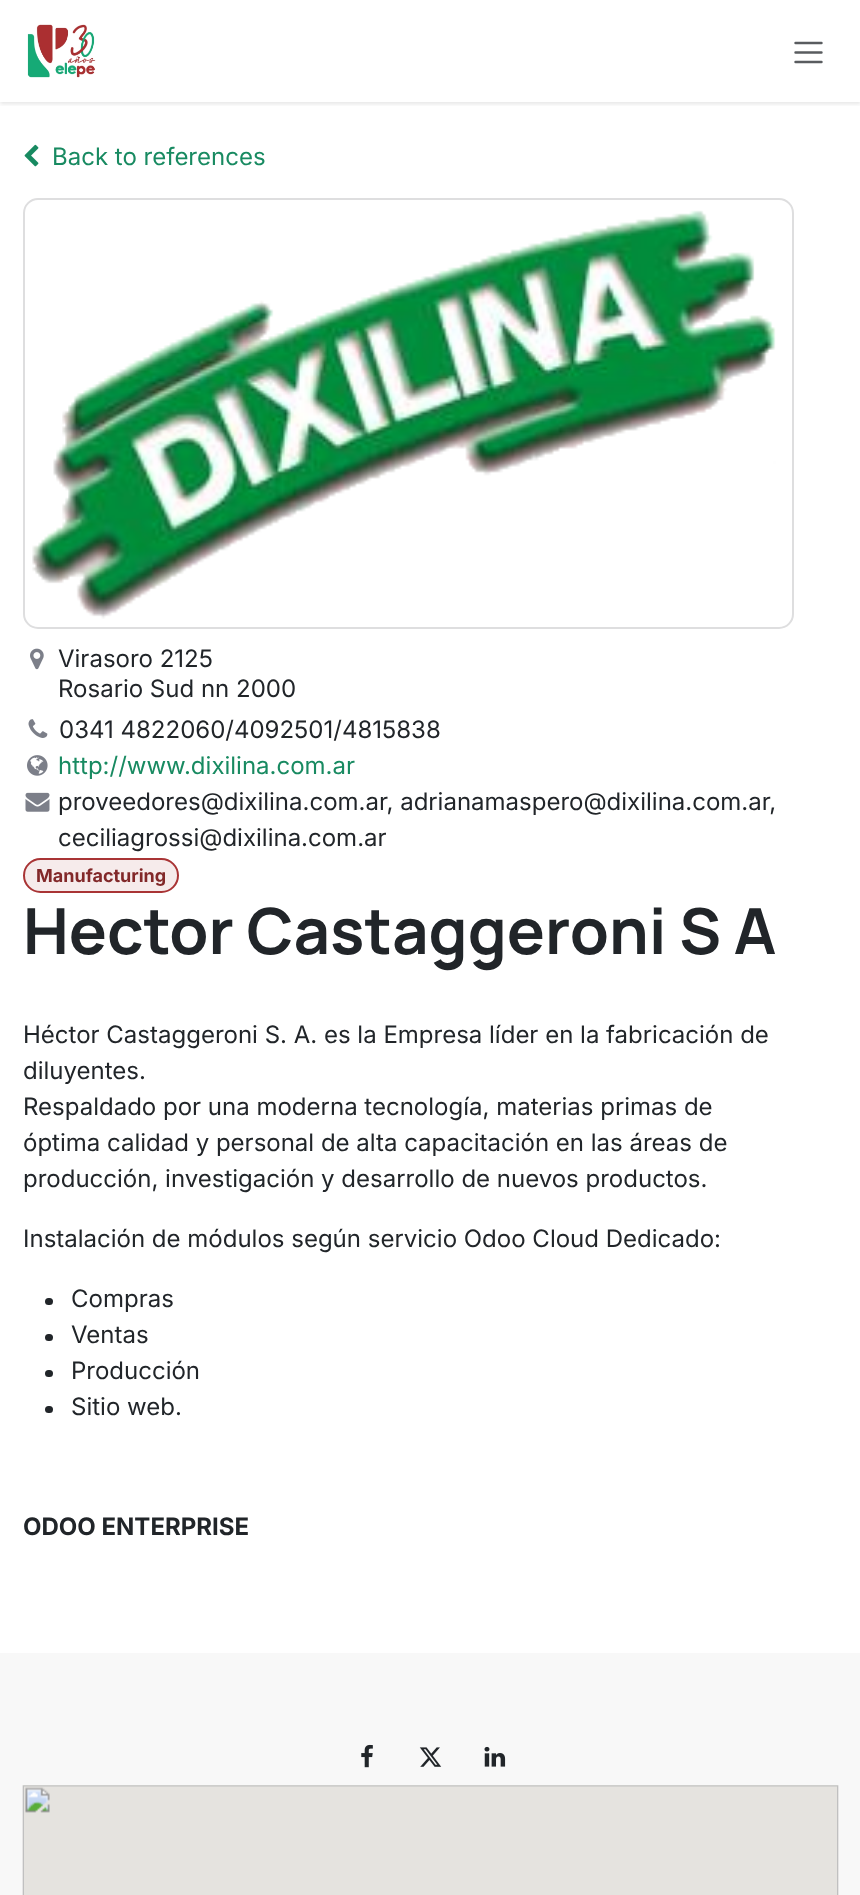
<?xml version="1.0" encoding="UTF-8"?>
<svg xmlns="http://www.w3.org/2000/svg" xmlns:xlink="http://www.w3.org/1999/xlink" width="860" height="1895">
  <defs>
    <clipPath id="clip1"><rect x="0" y="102" width="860" height="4" /></clipPath>
  </defs>
  <rect width="100%" height="100%" fill="#ffffff" />
  <g clip-path="url(#clip1)">
    <rect y="2" width="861" height="102" fill="#000000" fill-opacity="0.1" filter="blur(2px)" />
  </g>
  <image x="27" y="24" width="69" height="54" xlink:href="image1.png" />
  <path d="M 795.5 43 h 26 m -26 9.5 h 26 m -26 9.5 h 26" fill="none" stroke="#595c5f" stroke-width="2.4" stroke-linecap="round" />
  <image x="24" y="144" width="15" height="23" xlink:href="image2.png" />
  <rect x="24" y="199" width="769" height="429" rx="14" fill="none" stroke="#dededf" stroke-width="2" />
  <image x="32" y="210" width="744" height="409" xlink:href="image3.png" />
  <image x="30" y="648" width="14" height="22" xlink:href="image4.png" />
  <image x="28" y="719" width="20" height="19" xlink:href="image5.png" />
  <image x="27" y="755" width="21" height="21" xlink:href="image6.png" />
  <image x="25" y="792" width="25" height="20" xlink:href="image7.png" />
  <rect x="24" y="859" width="154" height="33" rx="16.5" fill="#f6ebeb" stroke="#a93435" stroke-width="2" />
  <rect x="45" y="1298" width="8" height="7" rx="3.5" fill="#212529" />
  <rect x="45" y="1334" width="8" height="7" rx="3.5" fill="#212529" />
  <rect x="45" y="1370" width="8" height="7" rx="3.5" fill="#212529" />
  <rect x="45" y="1406" width="8" height="7" rx="3.5" fill="#212529" />
  <rect y="1653" width="860" height="242" fill="#f8f8f8" />
  <image x="361" y="1744" width="12" height="24" xlink:href="image8.png" />
  <image x="419" y="1747" width="23" height="20" xlink:href="image9.png" />
  <image x="484" y="1746" width="22" height="21" xlink:href="image10.png" />
  <image x="22" y="1785" width="817" height="110" xlink:href="image11.png" />
  <text x="52" y="165" style="font-family: Inter; font-size: 24px; fill: #188a61">Back to references</text>
  <text x="58" y="667" style="font-family: Inter; font-size: 24px; fill: #212529">Virasoro 2125</text>
  <text x="58" y="697" style="font-family: Inter; font-size: 24px; fill: #212529">Rosario Sud nn 2000</text>
  <text x="59" y="738" style="font-family: Inter; font-size: 24px; fill: #212529">0341 4822060/4092501/4815838</text>
  <text x="58" y="774" style="font-family: Inter; font-size: 24px; fill: #188a61">http://www.dixilina.com.ar</text>
  <text x="58" y="810" style="font-family: Inter; font-size: 24px; fill: #212529">proveedores@dixilina.com.ar, adrianamaspero@dixilina.com.ar,</text>
  <text x="58" y="846" style="font-family: Inter; font-size: 24px; fill: #212529">ceciliagrossi@dixilina.com.ar</text>
  <text x="36" y="882" style="font-family: Inter; font-size: 18px; font-weight: bold; fill: #822829">Manufacturing</text>
  <text x="23" y="954" style="font-family: Manrope; font-size: 63.5px; font-weight: bold; fill: #212529">Hector Castaggeroni S A</text>
  <text x="23" y="1043" style="font-family: Inter; font-size: 24px; fill: #212529">Héctor Castaggeroni S. A. es la Empresa líder en la fabricación de</text>
  <text x="23" y="1079" style="font-family: Inter; font-size: 24px; fill: #212529">diluyentes.</text>
  <text x="23" y="1115" style="font-family: Inter; font-size: 24px; fill: #212529">Respaldado por una moderna tecnología, materias primas de</text>
  <text x="23" y="1151" style="font-family: Inter; font-size: 24px; fill: #212529">óptima calidad y personal de alta capacitación en las áreas de</text>
  <text x="23" y="1187" style="font-family: Inter; font-size: 24px; fill: #212529">producción, investigación y desarrollo de nuevos productos.</text>
  <text x="23" y="1247" style="font-family: Inter; font-size: 24px; fill: #212529">Instalación de módulos según servicio Odoo Cloud Dedicado:</text>
  <text x="71" y="1307" style="font-family: Inter; font-size: 24px; fill: #212529">Compras</text>
  <text x="71" y="1343" style="font-family: Inter; font-size: 24px; fill: #212529">Ventas</text>
  <text x="71" y="1379" style="font-family: Inter; font-size: 24px; fill: #212529">Producción</text>
  <text x="71" y="1415" style="font-family: Inter; font-size: 24px; fill: #212529">Sitio web.</text>
  <text x="23" y="1535" style="font-family: Inter; font-size: 24px; font-weight: bold; fill: #212529">ODOO ENTERPRISE</text>
</svg>
